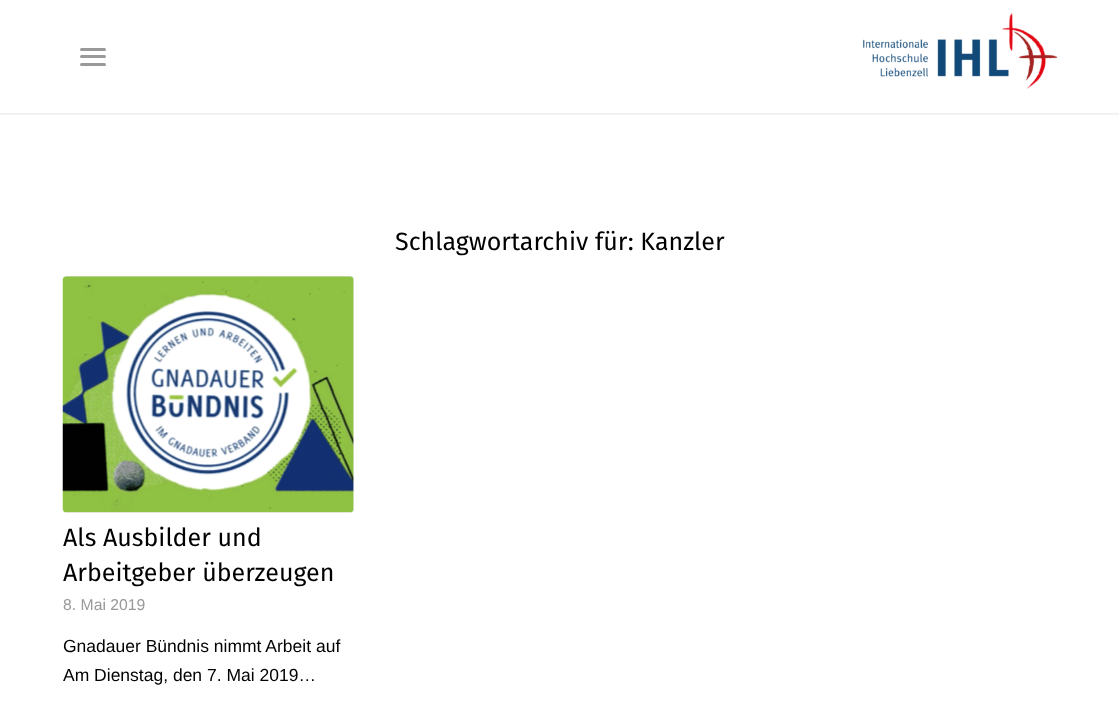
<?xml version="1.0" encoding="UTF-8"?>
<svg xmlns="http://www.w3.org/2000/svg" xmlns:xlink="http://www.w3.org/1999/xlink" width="1119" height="706">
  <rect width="100%" height="100%" fill="#ffffff" />
  <rect x="-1" y="-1" width="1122" height="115" fill="#000000" fill-opacity="0.1" filter="blur(1px)" />
  <rect width="1119" height="113" fill="#ffffff" />
  <rect x="80" y="55" width="26" height="3" rx="1.5" fill="#999999" />
  <rect x="80" y="48" width="26" height="3" rx="1.5" fill="#999999" />
  <rect x="80" y="63" width="26" height="3" rx="1.5" fill="#999999" />
  <image x="863" y="13" width="195" height="76" xlink:href="image1.png" />
  <rect x="63" y="276" width="291" height="237" rx="4" fill="#ededed" />
  <image x="62" y="276" width="292" height="237" xlink:href="image2.png" />
  <text x="395" y="250" style="font-family: Fira Sans; font-size: 25px; fill: #000000">Schlagwortarchiv für: Kanzler</text>
  <text x="63" y="546" style="font-family: Fira Sans; font-size: 25px; fill: #000000">Als Ausbilder und</text>
  <text x="63" y="581" style="font-family: Fira Sans; font-size: 25px; fill: #000000">Arbeitgeber überzeugen</text>
  <text x="63" y="610" style="font-family: Liberation Sans; font-size: 15.75px; fill: #999999">8. Mai 2019</text>
  <text x="63" y="652" style="font-family: Liberation Sans; font-size: 17.5px; fill: #000000">Gnadauer Bündnis nimmt Arbeit auf</text>
  <text x="63" y="681" style="font-family: Liberation Sans; font-size: 17.5px; fill: #000000">Am Dienstag, den 7. Mai 2019…</text>
</svg>
